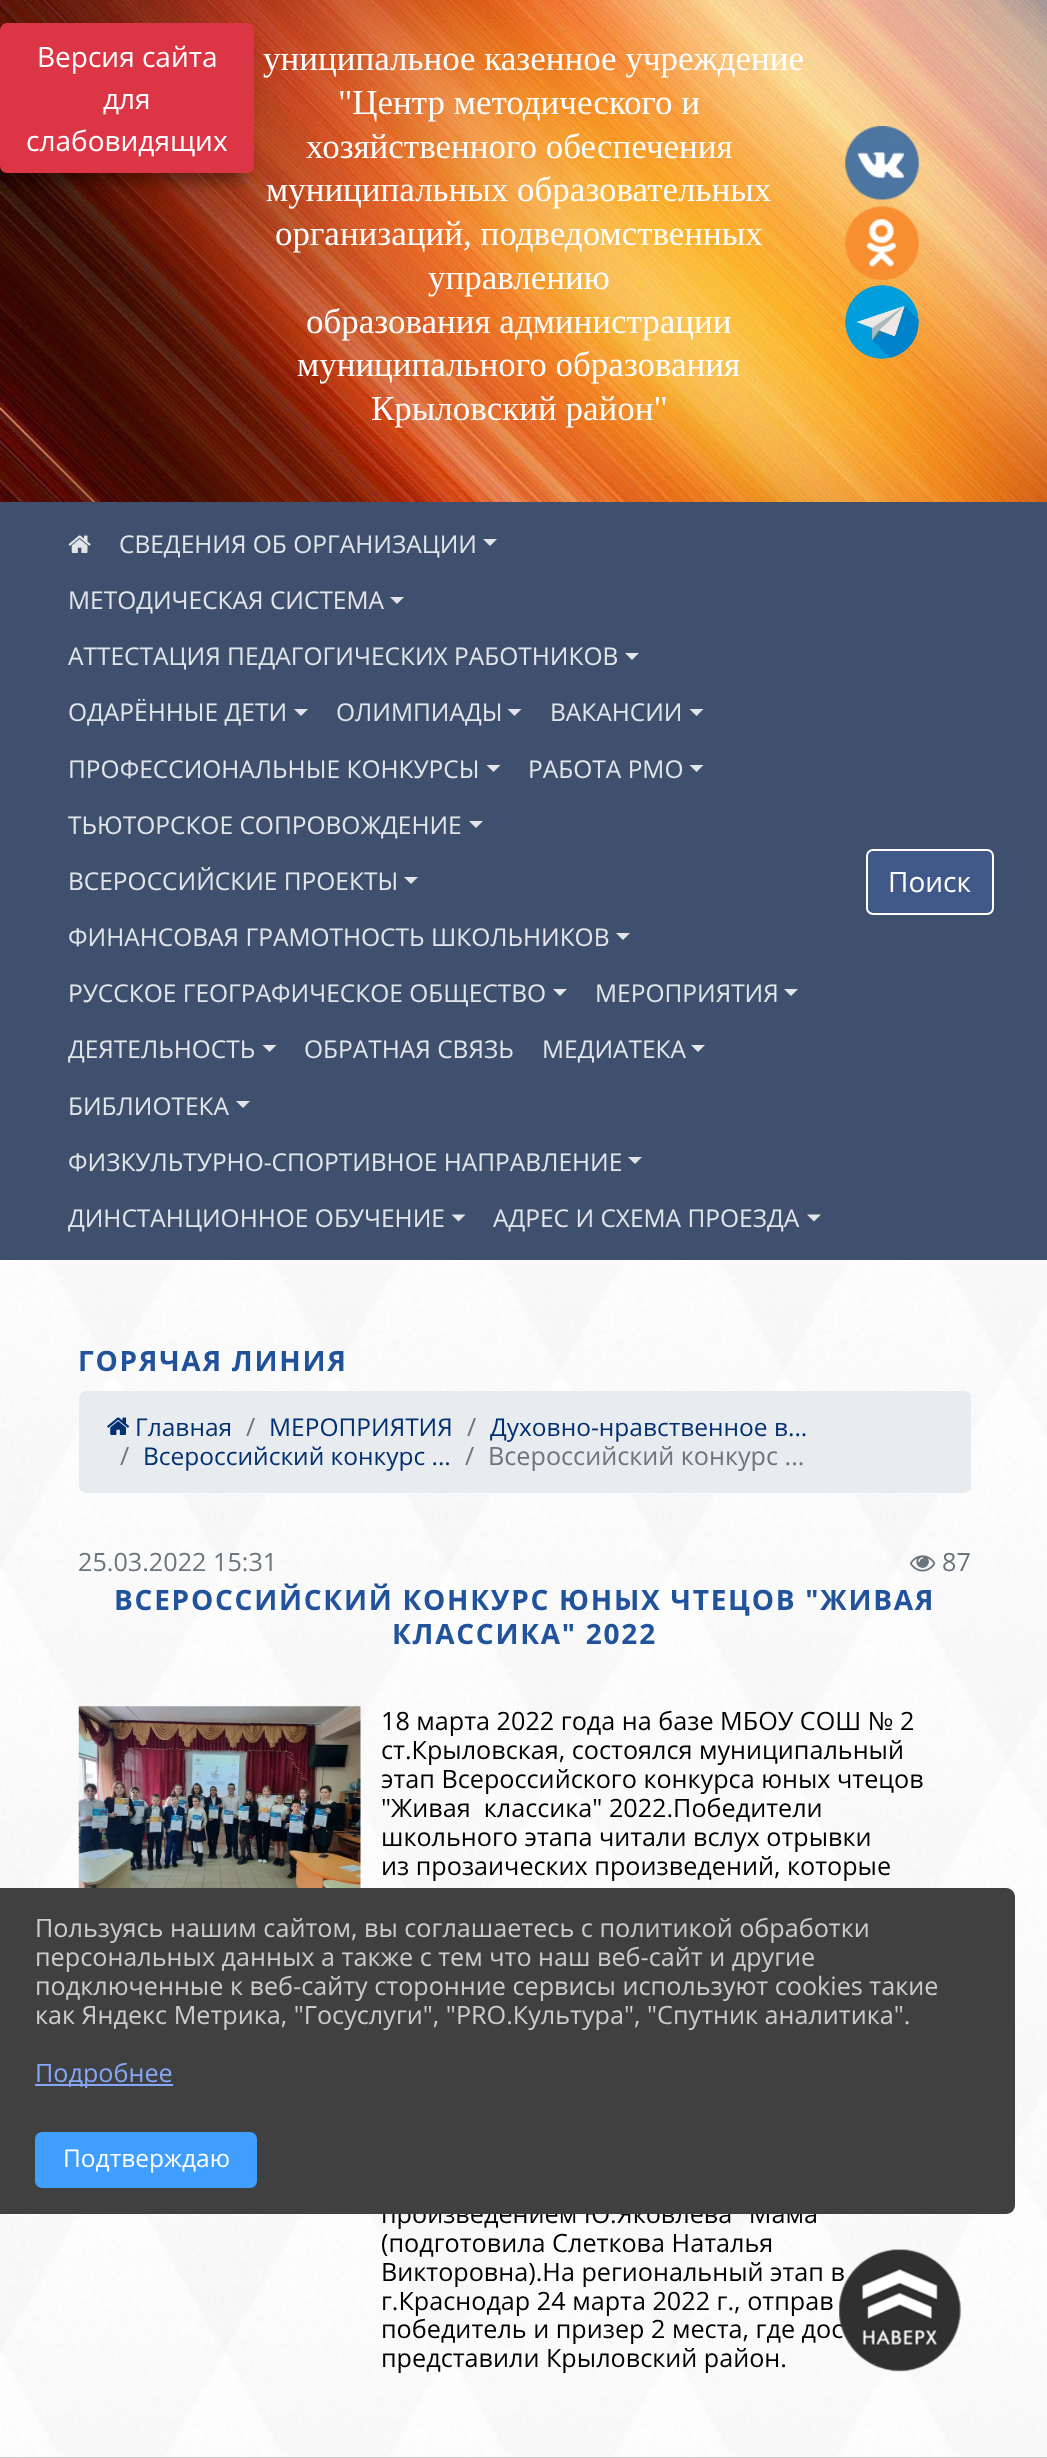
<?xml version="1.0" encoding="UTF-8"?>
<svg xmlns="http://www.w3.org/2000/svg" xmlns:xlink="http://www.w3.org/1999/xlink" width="1047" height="2458">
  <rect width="100%" height="100%" fill="#ffffff" />
  <image x="0" y="1260" width="1047" height="1197" xlink:href="image1.png" />
  <image x="0" y="0" width="1047" height="502" xlink:href="image2.png" />
  <rect x="-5" y="35" width="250" height="147" rx="5" fill="#000000" fill-opacity="0.35" filter="blur(7px)" />
  <rect x="1" y="24" width="252" height="148" rx="6" fill="#dc3545" stroke="#dc3545" stroke-width="2" />
  <image x="845" y="126" width="74" height="74" xlink:href="image3.png" />
  <image x="845" y="206" width="74" height="74" xlink:href="image4.png" />
  <image x="845" y="285" width="74" height="74" xlink:href="image5.png" />
  <rect y="502" width="1047" height="758" fill="#3e506d" />
  <image x="68" y="535" width="23" height="18" xlink:href="image6.png" />
  <path d="M 483 539 h 14 l -7 7 z" fill="#e2e5e9" />
  <path d="M 390 597 h 14 l -7 7 z" fill="#e2e5e9" />
  <path d="M 625 653 h 14 l -7 7 z" fill="#e2e5e9" />
  <path d="M 294 709 h 14 l -7 7 z" fill="#e2e5e9" />
  <path d="M 507.5 709 h 14 l -7 7 z" fill="#e2e5e9" />
  <path d="M 689.5 709 h 14 l -7 7 z" fill="#e2e5e9" />
  <path d="M 486.5 765 h 14 l -7 7 z" fill="#e2e5e9" />
  <path d="M 689.5 765 h 14 l -7 7 z" fill="#e2e5e9" />
  <path d="M 469 821 h 14 l -7 7 z" fill="#e2e5e9" />
  <path d="M 404 877 h 14 l -7 7 z" fill="#e2e5e9" />
  <path d="M 616 933 h 14 l -7 7 z" fill="#e2e5e9" />
  <path d="M 553 989 h 14 l -7 7 z" fill="#e2e5e9" />
  <path d="M 784 989 h 14 l -7 7 z" fill="#e2e5e9" />
  <path d="M 262.5 1045 h 14 l -7 7 z" fill="#e2e5e9" />
  <path d="M 691 1045 h 14 l -7 7 z" fill="#e2e5e9" />
  <path d="M 236 1101 h 14 l -7 7 z" fill="#e2e5e9" />
  <path d="M 628 1157 h 14 l -7 7 z" fill="#e2e5e9" />
  <path d="M 451.5 1214.5 h 14 l -7 7 z" fill="#e2e5e9" />
  <path d="M 807 1214.5 h 14 l -7 7 z" fill="#e2e5e9" />
  <rect x="867" y="850" width="126" height="64" rx="6" fill="#405988" stroke="#ffffff" stroke-width="2" />
  <rect x="79" y="1391" width="892" height="102" rx="7" fill="#e9ecef" />
  <image x="107" y="1417" width="23" height="18" xlink:href="image7.png" />
  <image x="910" y="1555" width="26" height="17" xlink:href="image8.png" />
  <image x="78" y="1706" width="283" height="182" xlink:href="image9.png" />
  <rect y="2457" width="1047" height="1" fill="#cccccc" />
  <text x="37" y="67" style="font-family: Open Sans; font-size: 28px; fill: #ffffff">Версия сайта</text>
  <text x="103" y="109" style="font-family: Open Sans; font-size: 28px; fill: #ffffff">для</text>
  <text x="26" y="151" style="font-family: Open Sans; font-size: 28px; fill: #ffffff">слабовидящих</text>
  <text x="263" y="70" style="font-family: Liberation Serif; font-size: 35px; fill: #ffffff">униципальное казенное учреждение</text>
  <text x="338" y="114" style="font-family: Liberation Serif; font-size: 35px; fill: #ffffff">"Центр методического и</text>
  <text x="306" y="158" style="font-family: Liberation Serif; font-size: 35px; fill: #ffffff">хозяйственного обеспечения</text>
  <text x="266" y="201" style="font-family: Liberation Serif; font-size: 35px; fill: #ffffff">муниципальных образовательных</text>
  <text x="275" y="245" style="font-family: Liberation Serif; font-size: 35px; fill: #ffffff">организаций, подведомственных</text>
  <text x="428" y="289" style="font-family: Liberation Serif; font-size: 35px; fill: #ffffff">управлению</text>
  <text x="306" y="333" style="font-family: Liberation Serif; font-size: 35px; fill: #ffffff">образования администрации</text>
  <text x="297" y="376" style="font-family: Liberation Serif; font-size: 35px; fill: #ffffff">муниципального образования</text>
  <text x="371" y="420" style="font-family: Liberation Serif; font-size: 35px; fill: #ffffff">Крыловский район"</text>
  <text x="119" y="553" style="font-family: Open Sans; font-size: 24.5px; fill: #e2e5e9">СВЕДЕНИЯ ОБ ОРГАНИЗАЦИИ</text>
  <text x="68" y="609" style="font-family: Open Sans; font-size: 24.5px; fill: #e2e5e9">МЕТОДИЧЕСКАЯ СИСТЕМА</text>
  <text x="68" y="665" style="font-family: Open Sans; font-size: 24.5px; fill: #e2e5e9">АТТЕСТАЦИЯ ПЕДАГОГИЧЕСКИХ РАБОТНИКОВ</text>
  <text x="68" y="721" style="font-family: Open Sans; font-size: 24.5px; fill: #e2e5e9">ОДАРЁННЫЕ ДЕТИ</text>
  <text x="336" y="721" style="font-family: Open Sans; font-size: 24.5px; fill: #e2e5e9">ОЛИМПИАДЫ</text>
  <text x="550" y="721" style="font-family: Open Sans; font-size: 24.5px; fill: #e2e5e9">ВАКАНСИИ</text>
  <text x="68" y="778" style="font-family: Open Sans; font-size: 24.5px; fill: #e2e5e9">ПРОФЕССИОНАЛЬНЫЕ КОНКУРСЫ</text>
  <text x="528" y="778" style="font-family: Open Sans; font-size: 24.5px; fill: #e2e5e9">РАБОТА РМО</text>
  <text x="68" y="834" style="font-family: Open Sans; font-size: 24.5px; fill: #e2e5e9">ТЬЮТОРСКОЕ СОПРОВОЖДЕНИЕ</text>
  <text x="68" y="890" style="font-family: Open Sans; font-size: 24.5px; fill: #e2e5e9">ВСЕРОССИЙСКИЕ ПРОЕКТЫ</text>
  <text x="68" y="946" style="font-family: Open Sans; font-size: 24.5px; fill: #e2e5e9">ФИНАНСОВАЯ ГРАМОТНОСТЬ ШКОЛЬНИКОВ</text>
  <text x="68" y="1002" style="font-family: Open Sans; font-size: 24.5px; fill: #e2e5e9">РУССКОЕ ГЕОГРАФИЧЕСКОЕ ОБЩЕСТВО</text>
  <text x="595" y="1002" style="font-family: Open Sans; font-size: 24.5px; fill: #e2e5e9">МЕРОПРИЯТИЯ</text>
  <text x="68" y="1058" style="font-family: Open Sans; font-size: 24.5px; fill: #e2e5e9">ДЕЯТЕЛЬНОСТЬ</text>
  <text x="304" y="1058" style="font-family: Open Sans; font-size: 24.5px; fill: #e2e5e9">ОБРАТНАЯ СВЯЗЬ</text>
  <text x="542" y="1058" style="font-family: Open Sans; font-size: 24.5px; fill: #e2e5e9">МЕДИАТЕКА</text>
  <text x="68" y="1115" style="font-family: Open Sans; font-size: 24.5px; fill: #e2e5e9">БИБЛИОТЕКА</text>
  <text x="68" y="1171" style="font-family: Open Sans; font-size: 24.5px; fill: #e2e5e9">ФИЗКУЛЬТУРНО-СПОРТИВНОЕ НАПРАВЛЕНИЕ</text>
  <text x="68" y="1227" style="font-family: Open Sans; font-size: 24.5px; fill: #e2e5e9">ДИНСТАНЦИОННОЕ ОБУЧЕНИЕ</text>
  <text x="493" y="1227" style="font-family: Open Sans; font-size: 24.5px; fill: #e2e5e9">АДРЕС И СХЕМА ПРОЕЗДА</text>
  <text x="888" y="892" style="font-family: Open Sans; font-size: 28px; fill: #ffffff">Поиск</text>
  <text x="78" y="1371" style="font-family: Open Sans; font-size: 28px; font-weight: bold; letter-spacing: 1.75px; fill: #20539b">ГОРЯЧАЯ ЛИНИЯ</text>
  <text x="135" y="1436" style="font-family: Open Sans; font-size: 24.5px; fill: #002f72">Главная</text>
  <text x="246" y="1436" style="font-family: Open Sans; font-size: 25.2px; fill: #6c757d">/</text>
  <text x="269" y="1436" style="font-family: Open Sans; font-size: 24.5px; fill: #002f72">МЕРОПРИЯТИЯ</text>
  <text x="467" y="1436" style="font-family: Open Sans; font-size: 25.2px; fill: #6c757d">/</text>
  <text x="490" y="1436" style="font-family: Open Sans; font-size: 24.5px; fill: #002f72">Духовно-нравственное в...</text>
  <text x="120" y="1465" style="font-family: Open Sans; font-size: 25.2px; fill: #6c757d">/</text>
  <text x="143" y="1465" style="font-family: Open Sans; font-size: 24.5px; fill: #002f72">Всероссийский конкурс ...</text>
  <text x="465" y="1465" style="font-family: Open Sans; font-size: 25.2px; fill: #6c757d">/</text>
  <text x="488" y="1465" style="font-family: Open Sans; font-size: 25.2px; fill: #6c757d">Всероссийский конкурс ...</text>
  <text x="78" y="1571" style="font-family: Open Sans; font-size: 25.2px; fill: #6c757d">25.03.2022 15:31</text>
  <text x="942" y="1571" style="font-family: Open Sans; font-size: 25.2px; fill: #6c757d">87</text>
  <text x="114" y="1610" style="font-family: Open Sans; font-size: 28px; font-weight: bold; letter-spacing: 1.75px; fill: #20539b">ВСЕРОССИЙСКИЙ КОНКУРС ЮНЫХ ЧТЕЦОВ "ЖИВАЯ</text>
  <text x="392" y="1644" style="font-family: Open Sans; font-size: 28px; font-weight: bold; letter-spacing: 1.75px; fill: #20539b">КЛАССИКА" 2022</text>
  <text x="381" y="1730" style="font-family: Open Sans; font-size: 25.2px; fill: #000000">18 марта 2022 года на базе МБОУ СОШ № 2</text>
  <text x="381" y="1759" style="font-family: Open Sans; font-size: 25.2px; fill: #000000">ст.Крыловская, состоялся муниципальный</text>
  <text x="381" y="1788" style="font-family: Open Sans; font-size: 25.2px; fill: #000000">этап Всероссийского конкурса юных чтецов</text>
  <text x="381" y="1817" style="font-family: Open Sans; font-size: 25.2px; fill: #000000" xml:space="preserve">"Живая  классика" 2022.Победители</text>
  <text x="381" y="1846" style="font-family: Open Sans; font-size: 25.2px; fill: #000000">школьного этапа читали вслух отрывки</text>
  <text x="381" y="1875" style="font-family: Open Sans; font-size: 25.2px; fill: #000000">из прозаических произведений, которые</text>
  <text x="381" y="2223" style="font-family: Open Sans; font-size: 25.2px; fill: #000000">произведением Ю.Яковлева "Мама</text>
  <text x="381" y="2252" style="font-family: Open Sans; font-size: 25.2px; fill: #000000">(подготовила Слеткова Наталья</text>
  <text x="381" y="2281" style="font-family: Open Sans; font-size: 25.2px; fill: #000000">Викторовна).На региональный этап в</text>
  <text x="381" y="2310" style="font-family: Open Sans; font-size: 25.2px; fill: #000000">г.Краснодар 24 марта 2022 г., отправ</text>
  <text x="381" y="2338" style="font-family: Open Sans; font-size: 25.2px; fill: #000000">победитель и призер 2 места, где дос</text>
  <text x="381" y="2367" style="font-family: Open Sans; font-size: 25.2px; fill: #000000">представили Крыловский район.</text>
  <image x="839" y="2249" width="122" height="123" xlink:href="image10.png" />
  <path d="M 0 1888 h 1006 c 5 0 9 4 9 9 v 308 c 0 5 -4 9 -9 9 h -1006 z" fill="#404040" />
  <text x="35" y="1937" style="font-family: Open Sans; font-size: 25.2px; fill: #cccccc">Пользуясь нашим сайтом, вы соглашаетесь с политикой обработки</text>
  <text x="35" y="1966" style="font-family: Open Sans; font-size: 25.2px; fill: #cccccc">персональных данных а также с тем что наш веб-сайт и другие</text>
  <text x="35" y="1995" style="font-family: Open Sans; font-size: 25.2px; fill: #cccccc">подключенные к веб-сайту сторонние сервисы используют cookies такие</text>
  <text x="35" y="2024" style="font-family: Open Sans; font-size: 25.2px; fill: #cccccc">как Яндекс Метрика, "Госуслуги", "PRO.Культура", "Спутник аналитика".</text>
  <rect x="35" y="2084" width="138" height="2" fill="#85a6f9" />
  <text x="35" y="2082" style="font-family: Open Sans; font-size: 25.2px; fill: #85a6f9">Подробнее</text>
  <rect x="36" y="2133" width="220" height="54" rx="6" fill="#409eff" stroke="#409eff" stroke-width="2" />
  <text x="63" y="2167" style="font-family: Open Sans; font-size: 24.5px; fill: #ffffff">Подтверждаю</text>
</svg>
